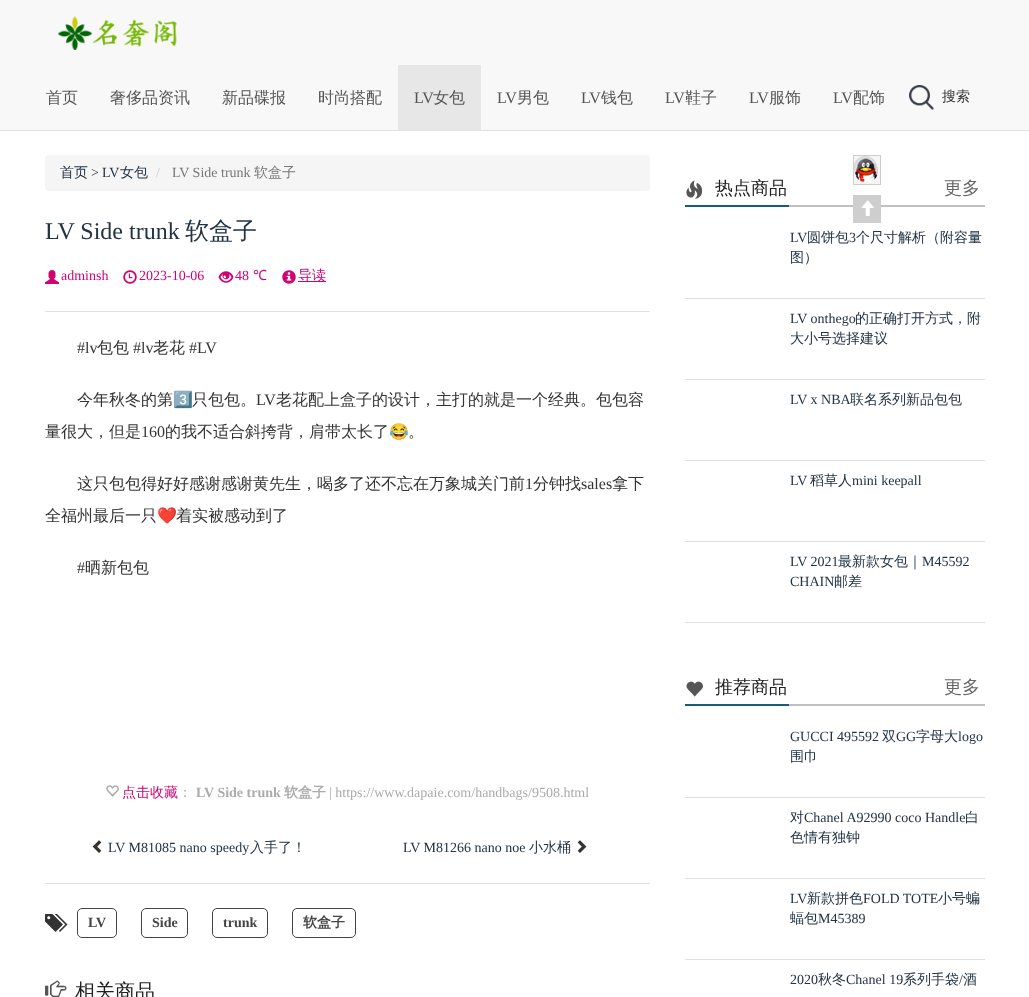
<?xml version="1.0" encoding="UTF-8"?>
<svg xmlns="http://www.w3.org/2000/svg" xmlns:xlink="http://www.w3.org/1999/xlink" width="1029" height="997">
  <rect width="100%" height="100%" fill="#ffffff" />
  <rect width="1029" height="130" fill="#f8f8f8" />
  <rect y="130" width="1029" height="1" fill="#e0e0e0" />
  <image x="57" y="16" width="120" height="34" xlink:href="image1.png" />
  <rect x="398" y="65" width="83" height="65" fill="#e7e7e7" />
  <image x="909" y="85" width="25" height="25" xlink:href="image2.png" />
  <rect x="45" y="155" width="605" height="36" rx="4" fill="#f5f5f5" />
  <image x="45" y="270" width="14" height="14" xlink:href="image3.png" />
  <image x="123" y="270" width="14" height="14" xlink:href="image4.png" />
  <image x="218" y="271" width="16" height="12" xlink:href="image5.png" />
  <image x="282" y="270" width="14" height="14" xlink:href="image6.png" />
  <rect x="298" y="281" width="28" height="1" fill="#d10271" />
  <rect x="45" y="311" width="605" height="1" fill="#e0e0e0" />
  <image x="106" y="785" width="13" height="12" xlink:href="image7.png" />
  <image x="92" y="840" width="10" height="13" xlink:href="image8.png" />
  <image x="577" y="840" width="10" height="13" xlink:href="image9.png" />
  <rect x="45" y="883" width="605" height="1" fill="#e0e0e0" />
  <image x="45" y="914" width="23" height="18" xlink:href="image10.png" />
  <rect x="77.5" y="908.5" width="39" height="29" rx="4.5" fill="none" stroke="#444444" />
  <rect x="141.5" y="908.5" width="46" height="29" rx="4.5" fill="none" stroke="#444444" />
  <rect x="212.5" y="908.5" width="55" height="29" rx="4.5" fill="none" stroke="#444444" />
  <rect x="292.5" y="908.5" width="63" height="29" rx="4.5" fill="none" stroke="#444444" />
  <image x="45" y="980" width="22" height="17" xlink:href="image11.png" />
  <rect x="853.5" y="155.5" width="27" height="29" fill="#f5f5f5" stroke="#cecece" />
  <image x="855" y="163" width="23" height="19" xlink:href="image12.png" />
  <image x="854" y="156" width="23" height="23" xlink:href="image13.png" />
  <rect x="789" y="205" width="196" height="2" fill="#c0c0c0" />
  <rect x="853" y="195" width="28" height="28" fill="#cecece" />
  <image x="861" y="200" width="13" height="16" xlink:href="image14.png" />
  <rect x="685" y="205" width="104" height="2" fill="#175b83" />
  <image x="686" y="180" width="17" height="19" xlink:href="image15.png" />
  <rect x="685" y="298" width="300" height="1" fill="#e0e0e0" />
  <rect x="685" y="379" width="300" height="1" fill="#e0e0e0" />
  <rect x="685" y="460" width="300" height="1" fill="#e0e0e0" />
  <rect x="685" y="541" width="300" height="1" fill="#e0e0e0" />
  <rect x="685" y="622" width="300" height="1" fill="#e0e0e0" />
  <rect x="789" y="704" width="196" height="2" fill="#c0c0c0" />
  <rect x="685" y="704" width="104" height="2" fill="#175b83" />
  <image x="686" y="681" width="17" height="16" xlink:href="image16.png" />
  <rect x="685" y="797" width="300" height="1" fill="#e0e0e0" />
  <rect x="685" y="878" width="300" height="1" fill="#e0e0e0" />
  <rect x="685" y="959" width="300" height="1" fill="#e0e0e0" />
  <text x="46" y="103" style="font-family: WenQuanYi Zen Hei; font-size: 16px; font-weight: 500; fill: #555555">首页</text>
  <text x="110" y="103" style="font-family: WenQuanYi Zen Hei; font-size: 16px; font-weight: 500; fill: #555555">奢侈品资讯</text>
  <text x="222" y="103" style="font-family: WenQuanYi Zen Hei; font-size: 16px; font-weight: 500; fill: #555555">新品碟报</text>
  <text x="318" y="103" style="font-family: WenQuanYi Zen Hei; font-size: 16px; font-weight: 500; fill: #555555">时尚搭配</text>
  <text x="414" y="103" style="font-family: Liberation Serif; font-size: 16px; fill: #555555">LV</text>
  <text x="433" y="103" style="font-family: WenQuanYi Zen Hei; font-size: 16px; font-weight: 500; fill: #555555">女包</text>
  <text x="497" y="103" style="font-family: Liberation Serif; font-size: 16px; fill: #555555">LV</text>
  <text x="517" y="103" style="font-family: WenQuanYi Zen Hei; font-size: 16px; font-weight: 500; fill: #555555">男包</text>
  <text x="581" y="103" style="font-family: Liberation Serif; font-size: 16px; fill: #555555">LV</text>
  <text x="601" y="103" style="font-family: WenQuanYi Zen Hei; font-size: 16px; font-weight: 500; fill: #555555">钱包</text>
  <text x="665" y="103" style="font-family: Liberation Serif; font-size: 16px; fill: #555555">LV</text>
  <text x="685" y="103" style="font-family: WenQuanYi Zen Hei; font-size: 16px; font-weight: 500; fill: #555555">鞋子</text>
  <text x="749" y="103" style="font-family: Liberation Serif; font-size: 16px; fill: #555555">LV</text>
  <text x="769" y="103" style="font-family: WenQuanYi Zen Hei; font-size: 16px; font-weight: 500; fill: #555555">服饰</text>
  <text x="833" y="103" style="font-family: Liberation Serif; font-size: 16px; fill: #555555">LV</text>
  <text x="853" y="103" style="font-family: WenQuanYi Zen Hei; font-size: 16px; font-weight: 500; fill: #555555">配饰</text>
  <text x="942" y="101" style="font-family: WenQuanYi Zen Hei; font-size: 14px; font-weight: 500; fill: #333333">搜索</text>
  <text x="60" y="177" style="font-family: WenQuanYi Zen Hei; font-size: 14px; font-weight: 500; fill: #223344">首页</text>
  <text x="91" y="177" style="font-family: Liberation Serif; font-size: 14px; fill: #333333">&gt;</text>
  <text x="102" y="177" style="font-family: Liberation Serif; font-size: 14px; fill: #223344">LV</text>
  <text x="120" y="177" style="font-family: WenQuanYi Zen Hei; font-size: 14px; font-weight: 500; fill: #223344">女包</text>
  <text x="156" y="177" style="font-family: Liberation Serif; font-size: 14px; fill: #cccccc">/</text>
  <text x="172" y="177" style="font-family: Liberation Serif; font-size: 14px; fill: #777777">LV Side trunk</text>
  <text x="254" y="177" style="font-family: WenQuanYi Zen Hei; font-size: 14px; font-weight: 500; fill: #777777">软盒子</text>
  <text x="45" y="239" style="font-family: Liberation Serif; font-size: 24px; fill: #223344">LV Side trunk</text>
  <text x="185" y="239" style="font-family: WenQuanYi Zen Hei; font-size: 24px; font-weight: 500; fill: #223344">软盒子</text>
  <text x="61" y="280" style="font-family: Liberation Serif; font-size: 14px; fill: #d10271">adminsh</text>
  <text x="139" y="280" style="font-family: Liberation Serif; font-size: 14px; fill: #d10271">2023-10-06</text>
  <text x="235" y="280" style="font-family: Liberation Serif; font-size: 14px; fill: #d10271">48</text>
  <text x="253" y="280" style="font-family: Noto Sans; font-size: 14px; fill: #d10271">℃</text>
  <text x="298" y="280" style="font-family: WenQuanYi Zen Hei; font-size: 14px; font-weight: 500; fill: #d10271">导读</text>
  <text x="77" y="353" style="font-family: Liberation Serif; font-size: 16px; fill: #333333">#lv</text>
  <text x="97" y="353" style="font-family: WenQuanYi Zen Hei; font-size: 16px; font-weight: 500; fill: #333333">包包</text>
  <text x="133" y="353" style="font-family: Liberation Serif; font-size: 16px; fill: #333333">#lv</text>
  <text x="153" y="353" style="font-family: WenQuanYi Zen Hei; font-size: 16px; font-weight: 500; fill: #333333">老花</text>
  <text x="189" y="353" style="font-family: Liberation Serif; font-size: 16px; fill: #333333">#LV</text>
  <text x="77" y="405" style="font-family: WenQuanYi Zen Hei; font-size: 16px; font-weight: 500; fill: #333333">今年秋冬的第</text>
  <text x="173" y="405" style="font-family: Noto Color Emoji; font-size: 16px; fill: #333333">3️⃣</text>
  <text x="192" y="405" style="font-family: WenQuanYi Zen Hei; font-size: 16px; font-weight: 500; fill: #333333">只包包。</text>
  <text x="256" y="405" style="font-family: Liberation Serif; font-size: 16px; fill: #333333">LV</text>
  <text x="276" y="405" style="font-family: WenQuanYi Zen Hei; font-size: 16px; font-weight: 500; fill: #333333">老花配上盒子的设计，主打的就是一个经典。包包容</text>
  <text x="45" y="437" style="font-family: WenQuanYi Zen Hei; font-size: 16px; font-weight: 500; fill: #333333">量很大，但是</text>
  <text x="141" y="437" style="font-family: Liberation Serif; font-size: 16px; fill: #333333">160</text>
  <text x="165" y="437" style="font-family: WenQuanYi Zen Hei; font-size: 16px; font-weight: 500; fill: #333333">的我不适合斜挎背，肩带太长了</text>
  <text x="389" y="437" style="font-family: Noto Color Emoji; font-size: 16px; fill: #333333">😂</text>
  <text x="408" y="437" style="font-family: WenQuanYi Zen Hei; font-size: 16px; font-weight: 500; fill: #333333">。</text>
  <text x="77" y="489" style="font-family: WenQuanYi Zen Hei; font-size: 16px; font-weight: 500; fill: #333333">这只包包得好好感谢感谢黄先生，喝多了还不忘在万象城关门前</text>
  <text x="525" y="489" style="font-family: Liberation Serif; font-size: 16px; fill: #333333">1</text>
  <text x="533" y="489" style="font-family: WenQuanYi Zen Hei; font-size: 16px; font-weight: 500; fill: #333333">分钟找</text>
  <text x="581" y="489" style="font-family: Liberation Serif; font-size: 16px; fill: #333333">sales</text>
  <text x="612" y="489" style="font-family: WenQuanYi Zen Hei; font-size: 16px; font-weight: 500; fill: #333333">拿下</text>
  <text x="45" y="521" style="font-family: WenQuanYi Zen Hei; font-size: 16px; font-weight: 500; fill: #333333">全福州最后一只</text>
  <text x="157" y="521" style="font-family: Noto Color Emoji; font-size: 16px; fill: #333333">❤️</text>
  <text x="176" y="521" style="font-family: WenQuanYi Zen Hei; font-size: 16px; font-weight: 500; fill: #333333">着实被感动到了</text>
  <text x="77" y="573" style="font-family: Liberation Serif; font-size: 16px; fill: #333333">#</text>
  <text x="85" y="573" style="font-family: WenQuanYi Zen Hei; font-size: 16px; font-weight: 500; fill: #333333">晒新包包</text>
  <text x="122" y="797" style="font-family: WenQuanYi Zen Hei; font-size: 14px; font-weight: 500; fill: #d10271">点击收藏</text>
  <text x="178" y="797" style="font-family: WenQuanYi Zen Hei; font-size: 14px; font-weight: 500; fill: #acabab">：</text>
  <text x="196" y="797" style="font-family: Liberation Serif; font-size: 14px; font-weight: bold; fill: #acabab">LV Side trunk</text>
  <text x="284" y="797" style="font-family: WenQuanYi Zen Hei; font-size: 14px; font-weight: bold; fill: #acabab">软盒子</text>
  <text x="329" y="797" style="font-family: Liberation Serif; font-size: 14px; fill: #acabab">| https://www.dapaie.com/handbags/9508.html</text>
  <text x="108" y="852" style="font-family: Liberation Serif; font-size: 14px; fill: #223344">LV M81085 nano speedy</text>
  <text x="250" y="852" style="font-family: WenQuanYi Zen Hei; font-size: 14px; font-weight: 500; fill: #223344">入手了！</text>
  <text x="403" y="852" style="font-family: Liberation Serif; font-size: 14px; fill: #223344">LV M81266 nano noe</text>
  <text x="529" y="852" style="font-family: WenQuanYi Zen Hei; font-size: 14px; font-weight: 500; fill: #223344">小水桶</text>
  <text x="88" y="927" style="font-family: Liberation Serif; font-size: 14px; font-weight: bold; fill: #444444">LV</text>
  <text x="152" y="927" style="font-family: Liberation Serif; font-size: 14px; font-weight: bold; fill: #444444">Side</text>
  <text x="223" y="927" style="font-family: Liberation Serif; font-size: 14px; font-weight: bold; fill: #444444">trunk</text>
  <text x="303" y="927" style="font-family: WenQuanYi Zen Hei; font-size: 14px; font-weight: bold; fill: #444444">软盒子</text>
  <text x="75" y="998" style="font-family: WenQuanYi Zen Hei; font-size: 20px; font-weight: 500; fill: #222222">相关商品</text>
  <text x="715" y="194" style="font-family: WenQuanYi Zen Hei; font-size: 18px; font-weight: 500; fill: #222222">热点商品</text>
  <text x="944" y="194" style="font-family: WenQuanYi Zen Hei; font-size: 18px; font-weight: 500; fill: #666666">更多</text>
  <text x="790" y="242" style="font-family: Liberation Serif; font-size: 14px; fill: #223344">LV</text>
  <text x="807" y="242" style="font-family: WenQuanYi Zen Hei; font-size: 14px; font-weight: 500; fill: #223344">圆饼包</text>
  <text x="849" y="242" style="font-family: Liberation Serif; font-size: 14px; fill: #223344">3</text>
  <text x="856" y="242" style="font-family: WenQuanYi Zen Hei; font-size: 14px; font-weight: 500; fill: #223344">个尺寸解析（附容量</text>
  <text x="790" y="262" style="font-family: WenQuanYi Zen Hei; font-size: 14px; font-weight: 500; fill: #223344">图）</text>
  <text x="790" y="323" style="font-family: Liberation Serif; font-size: 14px; fill: #223344">LV onthego</text>
  <text x="855" y="323" style="font-family: WenQuanYi Zen Hei; font-size: 14px; font-weight: 500; fill: #223344">的正确打开方式，附</text>
  <text x="790" y="343" style="font-family: WenQuanYi Zen Hei; font-size: 14px; font-weight: 500; fill: #223344">大小号选择建议</text>
  <text x="790" y="404" style="font-family: Liberation Serif; font-size: 14px; fill: #223344">LV x NBA</text>
  <text x="850" y="404" style="font-family: WenQuanYi Zen Hei; font-size: 14px; font-weight: 500; fill: #223344">联名系列新品包包</text>
  <text x="790" y="485" style="font-family: Liberation Serif; font-size: 14px; fill: #223344">LV</text>
  <text x="810" y="485" style="font-family: WenQuanYi Zen Hei; font-size: 14px; font-weight: 500; fill: #223344">稻草人</text>
  <text x="852" y="485" style="font-family: Liberation Serif; font-size: 14px; fill: #223344">mini keepall</text>
  <text x="790" y="566" style="font-family: Liberation Serif; font-size: 14px; fill: #223344">LV 2021</text>
  <text x="838" y="566" style="font-family: WenQuanYi Zen Hei; font-size: 14px; font-weight: 500; fill: #223344">最新款女包｜</text>
  <text x="922" y="566" style="font-family: Liberation Serif; font-size: 14px; fill: #223344">M45592</text>
  <text x="790" y="586" style="font-family: Liberation Serif; font-size: 14px; fill: #223344">CHAIN</text>
  <text x="834" y="586" style="font-family: WenQuanYi Zen Hei; font-size: 14px; font-weight: 500; fill: #223344">邮差</text>
  <text x="715" y="693" style="font-family: WenQuanYi Zen Hei; font-size: 18px; font-weight: 500; fill: #222222">推荐商品</text>
  <text x="944" y="693" style="font-family: WenQuanYi Zen Hei; font-size: 18px; font-weight: 500; fill: #666666">更多</text>
  <text x="790" y="741" style="font-family: Liberation Serif; font-size: 14px; fill: #223344">GUCCI 495592</text>
  <text x="882" y="741" style="font-family: WenQuanYi Zen Hei; font-size: 14px; font-weight: 500; fill: #223344">双</text>
  <text x="896" y="741" style="font-family: Liberation Serif; font-size: 14px; fill: #223344">GG</text>
  <text x="916" y="741" style="font-family: WenQuanYi Zen Hei; font-size: 14px; font-weight: 500; fill: #223344">字母大</text>
  <text x="958" y="741" style="font-family: Liberation Serif; font-size: 14px; fill: #223344">logo</text>
  <text x="790" y="761" style="font-family: WenQuanYi Zen Hei; font-size: 14px; font-weight: 500; fill: #223344">围巾</text>
  <text x="790" y="822" style="font-family: WenQuanYi Zen Hei; font-size: 14px; font-weight: 500; fill: #223344">对</text>
  <text x="804" y="822" style="font-family: Liberation Serif; font-size: 14px; fill: #223344">Chanel A92990 coco Handle</text>
  <text x="965" y="822" style="font-family: WenQuanYi Zen Hei; font-size: 14px; font-weight: 500; fill: #223344">白</text>
  <text x="790" y="842" style="font-family: WenQuanYi Zen Hei; font-size: 14px; font-weight: 500; fill: #223344">色情有独钟</text>
  <text x="790" y="903" style="font-family: Liberation Serif; font-size: 14px; fill: #223344">LV</text>
  <text x="807" y="903" style="font-family: WenQuanYi Zen Hei; font-size: 14px; font-weight: 500; fill: #223344">新款拼色</text>
  <text x="863" y="903" style="font-family: Liberation Serif; font-size: 14px; fill: #223344">FOLD TOTE</text>
  <text x="938" y="903" style="font-family: WenQuanYi Zen Hei; font-size: 14px; font-weight: 500; fill: #223344">小号蝙</text>
  <text x="790" y="923" style="font-family: WenQuanYi Zen Hei; font-size: 14px; font-weight: 500; fill: #223344">蝠包</text>
  <text x="818" y="923" style="font-family: Liberation Serif; font-size: 14px; fill: #223344">M45389</text>
  <text x="790" y="984" style="font-family: Liberation Serif; font-size: 14px; fill: #223344">2020</text>
  <text x="818" y="984" style="font-family: WenQuanYi Zen Hei; font-size: 14px; font-weight: 500; fill: #223344">秋冬</text>
  <text x="846" y="984" style="font-family: Liberation Serif; font-size: 14px; fill: #223344">Chanel 19</text>
  <text x="903" y="984" style="font-family: WenQuanYi Zen Hei; font-size: 14px; font-weight: 500; fill: #223344">系列手袋</text>
  <text x="959" y="984" style="font-family: Liberation Serif; font-size: 14px; fill: #223344">/</text>
  <text x="963" y="984" style="font-family: WenQuanYi Zen Hei; font-size: 14px; font-weight: 500; fill: #223344">酒</text>
</svg>
